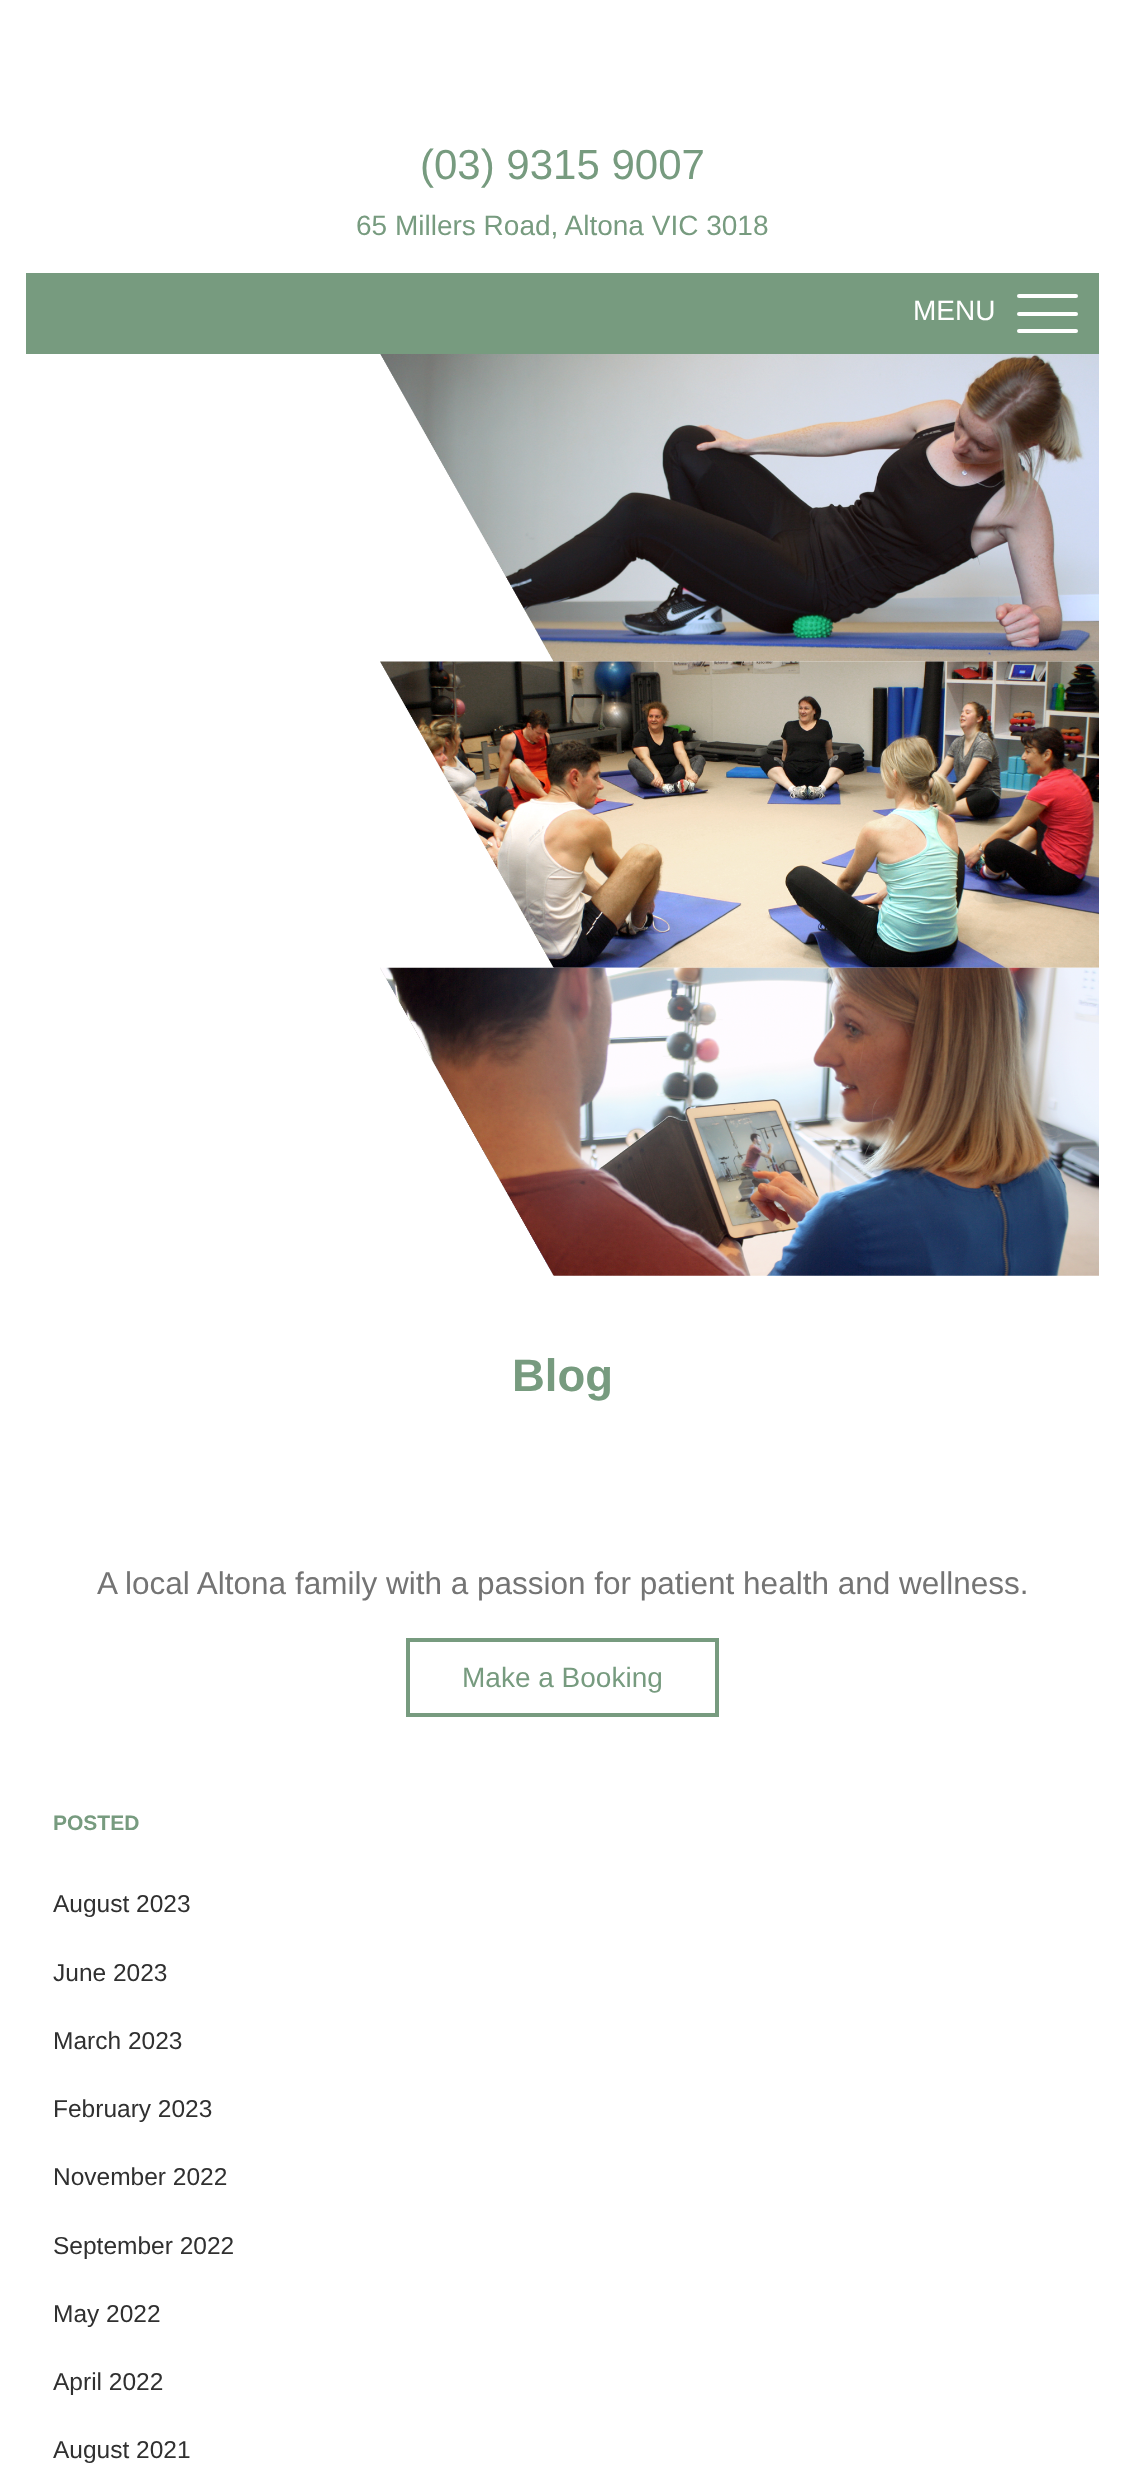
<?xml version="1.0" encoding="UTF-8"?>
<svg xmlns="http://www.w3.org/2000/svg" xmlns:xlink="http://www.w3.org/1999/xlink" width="1124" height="2488">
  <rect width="100%" height="100%" fill="#ffffff" />
  <rect x="26" y="273" width="1073" height="81" fill="#779b7f" />
  <rect x="1017" y="294" width="61" height="4" rx="2" fill="#ffffff" />
  <rect x="1017" y="312" width="61" height="4" rx="2" fill="#ffffff" />
  <rect x="1017" y="329" width="61" height="4" rx="2" fill="#ffffff" />
  <image x="380" y="354" width="719" height="308" xlink:href="image1.png" />
  <image x="380" y="661" width="719" height="307" xlink:href="image2.png" />
  <image x="380" y="967" width="719" height="309" xlink:href="image3.png" />
  <rect x="408" y="1640" width="309" height="75" fill="none" stroke="#779b7f" stroke-width="4" />
  <text x="420" y="179" style="font-family: Liberation Sans; font-size: 42px; fill: #779b7f">(03) 9315 9007</text>
  <text x="356" y="235" style="font-family: Liberation Sans; font-size: 28px; fill: #779b7f">65 Millers Road, Altona VIC 3018</text>
  <text x="913" y="320" style="font-family: Liberation Sans; font-size: 28px; fill: #ffffff">MENU</text>
  <text x="512" y="1391" style="font-family: Liberation Sans; font-size: 45.5px; font-weight: bold; fill: #779b7f">Blog</text>
  <text x="97" y="1594" style="font-family: Liberation Sans; font-size: 31.5px; fill: #747474">A local Altona family with a passion for patient health and wellness.</text>
  <text x="462" y="1687" style="font-family: Liberation Sans; font-size: 28px; fill: #779b7f">Make a Booking</text>
  <text x="53" y="1830" style="font-family: Liberation Sans; font-size: 21px; font-weight: bold; fill: #779b7f">POSTED</text>
  <text x="53" y="1912" style="font-family: Liberation Sans; font-size: 24.5px; fill: #303030">August 2023</text>
  <text x="53" y="1981" style="font-family: Liberation Sans; font-size: 24.5px; fill: #303030">June 2023</text>
  <text x="53" y="2049" style="font-family: Liberation Sans; font-size: 24.5px; fill: #303030">March 2023</text>
  <text x="53" y="2117" style="font-family: Liberation Sans; font-size: 24.5px; fill: #303030">February 2023</text>
  <text x="53" y="2185" style="font-family: Liberation Sans; font-size: 24.5px; fill: #303030">November 2022</text>
  <text x="53" y="2254" style="font-family: Liberation Sans; font-size: 24.5px; fill: #303030">September 2022</text>
  <text x="53" y="2322" style="font-family: Liberation Sans; font-size: 24.5px; fill: #303030">May 2022</text>
  <text x="53" y="2390" style="font-family: Liberation Sans; font-size: 24.5px; fill: #303030">April 2022</text>
  <text x="53" y="2458" style="font-family: Liberation Sans; font-size: 24.5px; fill: #303030">August 2021</text>
</svg>
